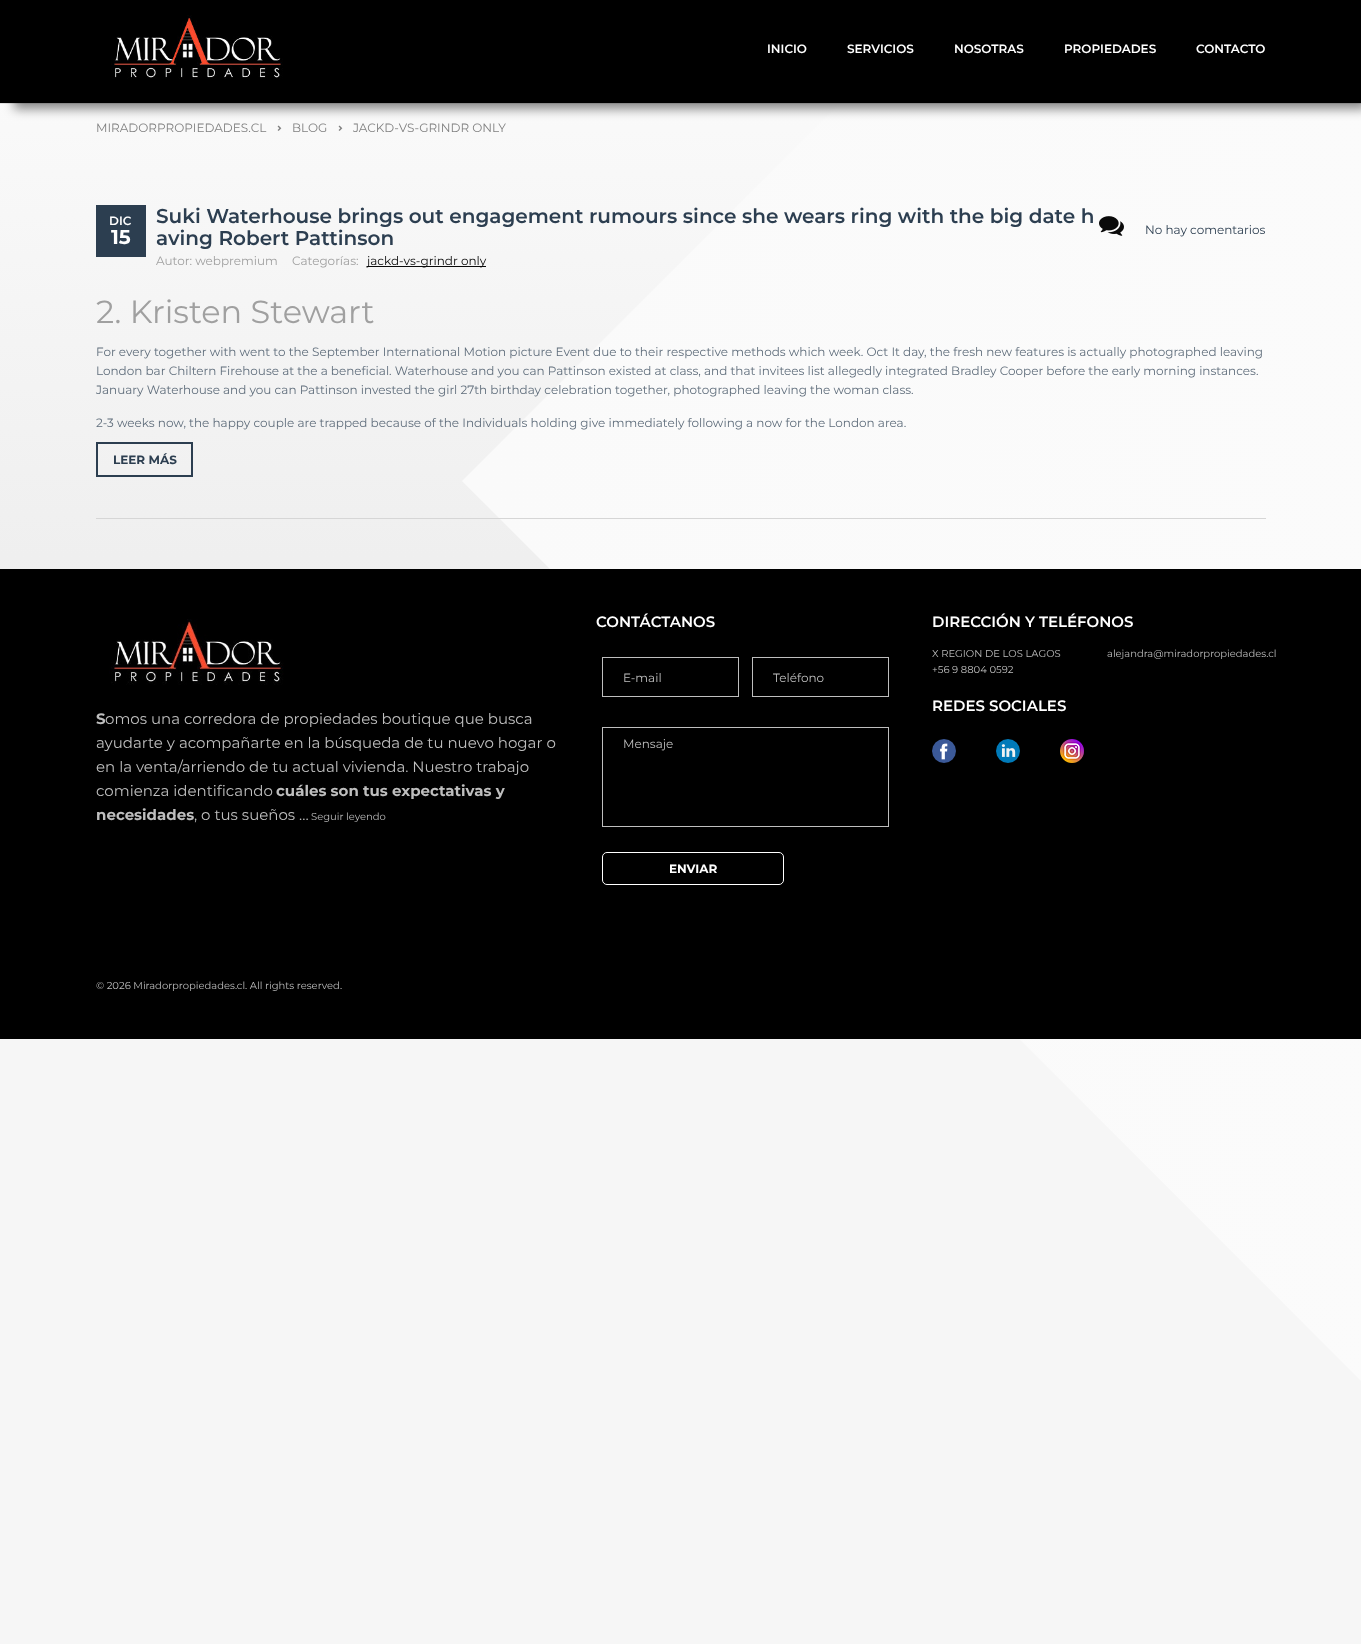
<?xml version="1.0" encoding="UTF-8"?>
<svg xmlns="http://www.w3.org/2000/svg" xmlns:xlink="http://www.w3.org/1999/xlink" width="1361" height="1644">
  <defs>
    <linearGradient id="g1" gradientUnits="userSpaceOnUse" x1="681" y1="0" x2="681" y2="600"><stop offset="0" stop-color="#fcfcfc" /><stop offset="1" stop-color="#eeeeee" /></linearGradient>
    <linearGradient id="g2" gradientUnits="userSpaceOnUse" x1="462" y1="0" x2="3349" y2="0"><stop offset="0" stop-color="#fafafa" /><stop offset="1" stop-color="#fdfdfd" /></linearGradient>
  </defs>
  <rect width="100%" height="100%" fill="#f6f6f6" />
  <rect y="104" width="839" height="465" fill="url(#g1)" />
  <path d="M 462 481 l 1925 -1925 l 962 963 l -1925 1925 z" fill="url(#g2)" />
  <rect y="103" width="1361" height="1" fill="#dedede" />
  <image x="277" y="125" width="5" height="6" xlink:href="image2.png" />
  <image x="338" y="125" width="5" height="6" xlink:href="image2.png" />
  <rect x="14" y="14" width="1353" height="95" fill="#000000" fill-opacity="0.46" filter="blur(5.5px)" />
  <rect width="1361" height="103" fill="#000000" />
  <image x="111" y="15" width="172" height="64" xlink:href="image1.png" />
  <rect x="96" y="518" width="1170" height="1" fill="#d6d6d6" />
  <rect x="96" y="205" width="50" height="52" fill="#2c3e50" />
  <rect x="367" y="266" width="119" height="1" fill="#0a0a0a" />
  <image x="1099" y="216" width="25" height="20" xlink:href="image3.png" />
  <rect x="97" y="443" width="95" height="33" fill="none" stroke="#2c3e50" stroke-width="2" />
  <rect y="569" width="1361" height="470" fill="#000000" />
  <rect x="602.5" y="657.5" width="136" height="39" fill="none" stroke="#bebebe" />
  <rect x="752.5" y="657.5" width="136" height="39" fill="none" stroke="#bebebe" />
  <rect x="602.5" y="727.5" width="286" height="99" fill="none" stroke="#bebebe" />
  <rect x="602.5" y="852.5" width="181" height="32" rx="4.5" fill="none" stroke="#ffffff" />
  <image x="932" y="739" width="24" height="24" xlink:href="image4.png" />
  <image x="996" y="739" width="24" height="24" xlink:href="image5.png" />
  <image x="1060" y="739" width="24" height="24" xlink:href="image6.png" />
  <image x="109" y="619" width="175" height="66" xlink:href="image7.png" />
  <text x="767" y="53" style="font-family: Montserrat; font-size: 12px; font-weight: 600; fill: #ffffff">INICIO</text>
  <text x="847" y="53" style="font-family: Montserrat; font-size: 12px; font-weight: 600; fill: #ffffff">SERVICIOS</text>
  <text x="954" y="53" style="font-family: Montserrat; font-size: 12px; font-weight: 600; fill: #ffffff">NOSOTRAS</text>
  <text x="1064" y="53" style="font-family: Montserrat; font-size: 12px; font-weight: 600; fill: #ffffff">PROPIEDADES</text>
  <text x="1196" y="53" style="font-family: Montserrat; font-size: 12px; font-weight: 600; fill: #ffffff">CONTACTO</text>
  <text x="96" y="132" style="font-family: Montserrat; font-size: 12px; fill: #808080">MIRADORPROPIEDADES.CL</text>
  <text x="292" y="132" style="font-family: Montserrat; font-size: 12px; fill: #808080">BLOG</text>
  <text x="353" y="132" style="font-family: Montserrat; font-size: 12px; fill: #808080">JACKD-VS-GRINDR ONLY</text>
  <text x="109" y="225" style="font-family: Montserrat; font-size: 12px; font-weight: 600; fill: #ffffff">DIC</text>
  <text x="111" y="244" style="font-family: Montserrat; font-size: 20px; font-weight: bold; fill: #ffffff">15</text>
  <text x="156" y="223" style="font-family: Montserrat; font-size: 20px; font-weight: 600; fill: #2c3e50">Suki Waterhouse brings out engagement rumours since she wears ring with the big date h</text>
  <text x="156" y="245" style="font-family: Montserrat; font-size: 20px; font-weight: 600; fill: #2c3e50">aving Robert Pattinson</text>
  <text x="156" y="265" style="font-family: Montserrat; font-size: 12px; fill: #a0a0a0">Autor: webpremium</text>
  <text x="292" y="265" style="font-family: Montserrat; font-size: 12px; fill: #a0a0a0">Categorías:</text>
  <text x="367" y="265" style="font-family: Montserrat; font-size: 12px; fill: #0a0a0a">jackd-vs-grindr only</text>
  <text x="1145" y="234" style="font-family: Montserrat; font-size: 12px; fill: #2c3e50">No hay comentarios</text>
  <text x="96" y="323" style="font-family: Montserrat; font-size: 32px; fill: #a0a0a0">2. Kristen Stewart</text>
  <text x="96" y="356" style="font-family: Montserrat; font-size: 12px; fill: #606e7c">For every together with went to the September International Motion picture Event due to their respective methods which week. Oct It day, the fresh new features is actually photographed leaving</text>
  <text x="96" y="375" style="font-family: Montserrat; font-size: 12px; fill: #606e7c">London bar Chiltern Firehouse at the a beneficial. Waterhouse and you can Pattinson existed at class, and that invitees list allegedly integrated Bradley Cooper before the early morning instances.</text>
  <text x="96" y="394" style="font-family: Montserrat; font-size: 12px; fill: #606e7c">January Waterhouse and you can Pattinson invested the girl 27th birthday celebration together, photographed leaving the woman class.</text>
  <text x="96" y="427" style="font-family: Montserrat; font-size: 12px; fill: #606e7c">2-3 weeks now, the happy couple are trapped because of the Individuals holding give immediately following a now for the London area.</text>
  <text x="113" y="464" style="font-family: Montserrat; font-size: 12px; font-weight: bold; fill: #2c3e50">LEER MÁS</text>
  <text x="596" y="627" style="font-family: Montserrat; font-size: 15px; font-weight: 600; fill: #ffffff">CONTÁCTANOS</text>
  <text x="623" y="682" style="font-family: Montserrat; font-size: 12px; fill: #bebebe">E-mail</text>
  <text x="773" y="682" style="font-family: Montserrat; font-size: 12px; fill: #bebebe">Teléfono</text>
  <text x="623" y="748" style="font-family: Montserrat; font-size: 12px; fill: #bebebe">Mensaje</text>
  <text x="669" y="873" style="font-family: Montserrat; font-size: 12px; font-weight: bold; fill: #ffffff">ENVIAR</text>
  <text x="932" y="627" style="font-family: Montserrat; font-size: 15px; font-weight: 600; fill: #ffffff">DIRECCIÓN Y TELÉFONOS</text>
  <text x="932" y="657" style="font-family: Montserrat; font-size: 10px; fill: #bebebe">X REGION DE LOS LAGOS</text>
  <text x="1107" y="657" style="font-family: Montserrat; font-size: 10px; fill: #bebebe">alejandra@miradorpropiedades.cl</text>
  <text x="932" y="673" style="font-family: Montserrat; font-size: 10px; fill: #bebebe">+56 9 8804 0592</text>
  <text x="932" y="711" style="font-family: Montserrat; font-size: 15px; font-weight: 600; fill: #ffffff">REDES SOCIALES</text>
  <text x="96" y="724" style="font-family: Montserrat; font-size: 15px; font-weight: bold; fill: #bebebe">S</text>
  <text x="105" y="724" style="font-family: Montserrat; font-size: 15px; fill: #bebebe">omos una corredora de propiedades boutique que busca</text>
  <text x="96" y="748" style="font-family: Montserrat; font-size: 15px; fill: #bebebe">ayudarte y acompañarte en la búsqueda de tu nuevo hogar o</text>
  <text x="96" y="772" style="font-family: Montserrat; font-size: 15px; fill: #bebebe">en la venta/arriendo de tu actual vivienda. Nuestro trabajo</text>
  <text x="96" y="796" style="font-family: Montserrat; font-size: 15px; fill: #bebebe">comienza identificando</text>
  <text x="276" y="796" style="font-family: Montserrat; font-size: 15px; font-weight: bold; fill: #bebebe">cuáles son tus expectativas y</text>
  <text x="96" y="820" style="font-family: Montserrat; font-size: 15px; font-weight: bold; fill: #bebebe">necesidades</text>
  <text x="194" y="820" style="font-family: Montserrat; font-size: 15px; fill: #bebebe">, o tus sueños …</text>
  <text x="311" y="820" style="font-family: Montserrat; font-size: 10px; fill: #bebebe">Seguir leyendo</text>
  <text x="96" y="989" style="font-family: Montserrat; font-size: 10px; fill: #bebebe">© 2026 Miradorpropiedades.cl. All rights reserved.</text>
</svg>
